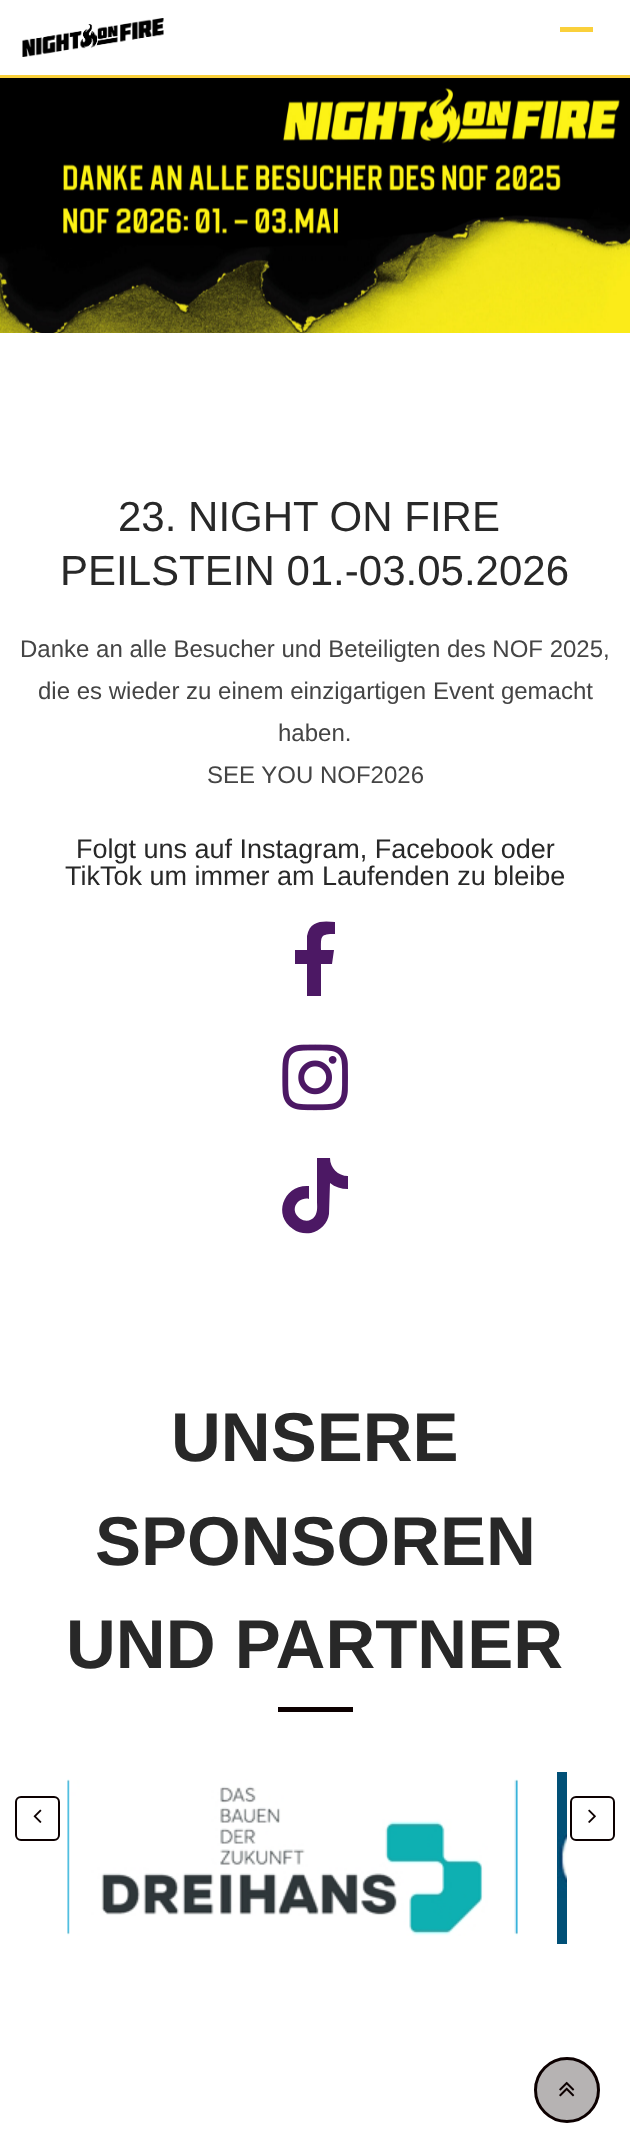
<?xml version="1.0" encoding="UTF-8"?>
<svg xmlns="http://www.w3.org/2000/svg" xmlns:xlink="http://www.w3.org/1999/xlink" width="630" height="2129">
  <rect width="100%" height="100%" fill="#ffffff" />
  <rect y="75" width="630" height="3" fill="#fad03b" />
  <image x="22" y="18" width="142" height="39" xlink:href="image1.png" />
  <rect x="560" y="27" width="33" height="5" fill="#fad03b" />
  <image x="0" y="78" width="630" height="255" xlink:href="image2.png" />
  <path d="M 332 964 h -11 v 32 h -14 v -32 h -12 v -14 h 12 v -14 c 3 -16 16 -15 28 -14 v 12 c -15 0 -14 2 -14 16 h 13 z" fill="#4c1864" />
  <image x="282" y="1044" width="66" height="67" xlink:href="image3.png" />
  <path d="M 348 1189 c -7 0 -13 -2 -18 -6 l -1 31 c -1 9 -9 17 -18 19 c -6 1 -13 0 -18 -4 c -21 -14 -9 -45 16 -43 v 13 c -3 -1 -7 0 -10 2 c -13 11 7 28 16 15 c 3 -5 2 -10 2 -15 v -43 h 13 c 0 10 8 18 18 18 z" fill="#4c1864" />
  <rect x="278" y="1707" width="75" height="5" fill="#0c0000" />
  <image x="67" y="1779" width="451" height="157" xlink:href="image4.png" />
  <image x="557" y="1772" width="10" height="172" xlink:href="image5.png" />
  <rect x="16" y="1797" width="43" height="43" rx="5" fill="none" stroke="#0c0000" stroke-width="2" />
  <image x="33" y="1809" width="9" height="14" xlink:href="image6.png" />
  <rect x="571" y="1797" width="43" height="43" rx="5" fill="none" stroke="#0c0000" stroke-width="2" />
  <image x="588" y="1809" width="8" height="14" xlink:href="image7.png" />
  <circle cx="567" cy="2090" r="31.5" fill="#b6b3b3" stroke="#0c0000" stroke-width="3" />
  <image x="559" y="2081" width="16" height="16" xlink:href="image8.png" />
  <text x="118" y="531" style="font-family: Liberation Sans; font-size: 42px; fill: #282828">23. NIGHT ON FIRE</text>
  <text x="60" y="585" style="font-family: Liberation Sans; font-size: 42px; fill: #282828">PEILSTEIN 01.-03.05.2026</text>
  <text x="20" y="657" style="font-family: Liberation Sans; font-size: 24px; fill: #444444">Danke an alle Besucher und Beteiligten des NOF 2025,</text>
  <text x="38" y="699" style="font-family: Liberation Sans; font-size: 24px; fill: #444444">die es wieder zu einem einzigartigen Event gemacht</text>
  <text x="278" y="741" style="font-family: Liberation Sans; font-size: 24px; fill: #444444">haben.</text>
  <text x="207" y="783" style="font-family: Liberation Sans; font-size: 24px; fill: #444444">SEE YOU NOF2026</text>
  <text x="76" y="858" style="font-family: Liberation Sans; font-size: 27px; fill: #282828">Folgt uns auf Instagram, Facebook oder</text>
  <text x="65" y="885" style="font-family: Liberation Sans; font-size: 27px; fill: #282828">TikTok um immer am Laufenden zu bleibe</text>
  <text x="171" y="1461" style="font-family: Liberation Sans; font-size: 69px; font-weight: bold; fill: #282828">UNSERE</text>
  <text x="95" y="1565" style="font-family: Liberation Sans; font-size: 69px; font-weight: bold; fill: #282828">SPONSOREN</text>
  <text x="66" y="1668" style="font-family: Liberation Sans; font-size: 69px; font-weight: bold; fill: #282828">UND PARTNER</text>
</svg>
